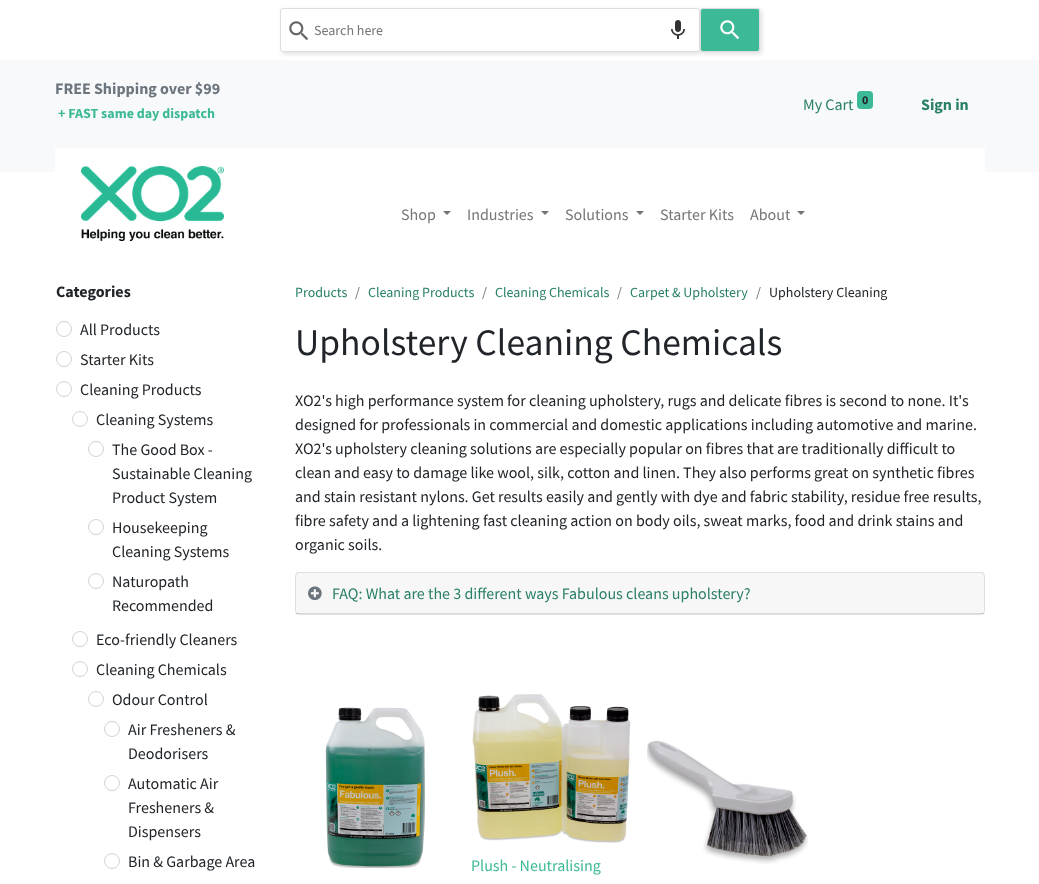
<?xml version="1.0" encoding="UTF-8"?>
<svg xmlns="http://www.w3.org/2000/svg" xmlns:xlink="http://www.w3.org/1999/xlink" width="1039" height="884">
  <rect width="100%" height="100%" fill="#ffffff" />
  <rect x="282" y="10" width="420" height="44" rx="3" fill="#000000" fill-opacity="0.12" filter="blur(2px)" />
  <rect x="280" y="8" width="420" height="44" rx="3" fill="#ffffff" />
  <image x="289" y="21" width="20" height="20" xlink:href="image1.png" />
  <rect x="280.5" y="8.5" width="419" height="43" rx="2.5" fill="none" stroke="#dddddd" />
  <image x="671" y="20" width="14" height="19" xlink:href="image2.png" />
  <rect x="702" y="10" width="60" height="44" rx="3" fill="#000000" fill-opacity="0.12" filter="blur(2px)" />
  <rect x="700.5" y="8.5" width="59" height="43" rx="2.5" fill="#3cb996" stroke="#dddddd" />
  <image x="720" y="20" width="20" height="20" xlink:href="image3.png" />
  <rect y="60" width="1039" height="112" fill="#f8f9fa" />
  <rect x="857" y="91" width="16" height="18" rx="4" fill="#3cb996" />
  <rect x="65" y="158" width="910" height="14" fill="#ffffff" />
  <path d="M 60 153 h 920 v 101 h -920 z" fill="none" stroke="#ffffff" stroke-width="10" />
  <image x="81" y="166" width="143" height="75" xlink:href="image4.png" />
  <path d="M 443 211 h 8 l -4 4 z" fill="#737373" />
  <path d="M 541 211 h 8 l -4 4 z" fill="#737373" />
  <path d="M 636 211 h 8 l -4 4 z" fill="#737373" />
  <path d="M 797 211 h 8 l -4 4 z" fill="#737373" />
  <circle cx="64" cy="329" r="7.5" fill="none" stroke="#ced4da" />
  <circle cx="64" cy="359" r="7.5" fill="none" stroke="#ced4da" />
  <circle cx="64" cy="389" r="7.5" fill="none" stroke="#ced4da" />
  <circle cx="80" cy="419" r="7.5" fill="none" stroke="#ced4da" />
  <circle cx="96" cy="449" r="7.5" fill="none" stroke="#ced4da" />
  <circle cx="96" cy="527" r="7.5" fill="none" stroke="#ced4da" />
  <circle cx="96" cy="581" r="7.5" fill="none" stroke="#ced4da" />
  <circle cx="80" cy="639" r="7.5" fill="none" stroke="#ced4da" />
  <circle cx="80" cy="669" r="7.5" fill="none" stroke="#ced4da" />
  <circle cx="96" cy="699" r="7.5" fill="none" stroke="#ced4da" />
  <circle cx="112" cy="729" r="7.5" fill="none" stroke="#ced4da" />
  <circle cx="112" cy="783" r="7.5" fill="none" stroke="#ced4da" />
  <circle cx="112" cy="861" r="7.5" fill="none" stroke="#ced4da" />
  <rect x="295.5" y="572.5" width="689" height="42" rx="3.5" fill="none" stroke="#dfdfdf" />
  <rect x="296" y="573" width="688" height="41" fill="#000000" fill-opacity="0.03" />
  <rect x="296" y="613" width="688" height="1" fill="#000000" fill-opacity="0.12" />
  <image x="308" y="586" width="14" height="15" xlink:href="image5.png" />
  <image x="325" y="707" width="100" height="161" xlink:href="image6.png" />
  <image x="647" y="740" width="161" height="124" xlink:href="image7.png" />
  <image x="472" y="694" width="159" height="149" xlink:href="image8.png" />
  <text x="314" y="35" style="font-family: Source Sans Pro; font-size: 14px; fill: #757575">Search here</text>
  <text x="55" y="94" style="font-family: Source Sans Pro; font-size: 16px; font-weight: bold; fill: #6c757d">FREE Shipping over $99</text>
  <text x="58" y="118" style="font-family: Source Sans Pro; font-size: 14px; font-weight: bold; fill: #3cb996">+ FAST same day dispatch</text>
  <text x="803" y="110" style="font-family: Source Sans Pro; font-size: 16px; fill: #297f67">My Cart</text>
  <text x="862" y="104" style="font-family: Source Sans Pro; font-size: 12px; font-weight: bold; fill: #212529">0</text>
  <text x="921" y="110" style="font-family: Source Sans Pro; font-size: 16px; font-weight: bold; fill: #297f67">Sign in</text>
  <text x="401" y="220" style="font-family: Source Sans Pro; font-size: 16px; fill: #757575">Shop</text>
  <text x="467" y="220" style="font-family: Source Sans Pro; font-size: 16px; fill: #757575">Industries</text>
  <text x="565" y="220" style="font-family: Source Sans Pro; font-size: 16px; fill: #757575">Solutions</text>
  <text x="660" y="220" style="font-family: Source Sans Pro; font-size: 16px; fill: #757575">Starter Kits</text>
  <text x="750" y="220" style="font-family: Source Sans Pro; font-size: 16px; fill: #757575">About</text>
  <text x="56" y="297" style="font-family: Source Sans Pro; font-size: 16px; font-weight: bold; fill: #212529">Categories</text>
  <text x="80" y="335" style="font-family: Source Sans Pro; font-size: 16px; fill: #212529">All Products</text>
  <text x="80" y="365" style="font-family: Source Sans Pro; font-size: 16px; fill: #212529">Starter Kits</text>
  <text x="80" y="395" style="font-family: Source Sans Pro; font-size: 16px; fill: #212529">Cleaning Products</text>
  <text x="96" y="425" style="font-family: Source Sans Pro; font-size: 16px; fill: #212529">Cleaning Systems</text>
  <text x="112" y="455" style="font-family: Source Sans Pro; font-size: 16px; fill: #212529">The Good Box -</text>
  <text x="112" y="479" style="font-family: Source Sans Pro; font-size: 16px; fill: #212529">Sustainable Cleaning</text>
  <text x="112" y="503" style="font-family: Source Sans Pro; font-size: 16px; fill: #212529">Product System</text>
  <text x="112" y="533" style="font-family: Source Sans Pro; font-size: 16px; fill: #212529">Housekeeping</text>
  <text x="112" y="557" style="font-family: Source Sans Pro; font-size: 16px; fill: #212529">Cleaning Systems</text>
  <text x="112" y="587" style="font-family: Source Sans Pro; font-size: 16px; fill: #212529">Naturopath</text>
  <text x="112" y="611" style="font-family: Source Sans Pro; font-size: 16px; fill: #212529">Recommended</text>
  <text x="96" y="645" style="font-family: Source Sans Pro; font-size: 16px; fill: #212529">Eco-friendly Cleaners</text>
  <text x="96" y="675" style="font-family: Source Sans Pro; font-size: 16px; fill: #212529">Cleaning Chemicals</text>
  <text x="112" y="705" style="font-family: Source Sans Pro; font-size: 16px; fill: #212529">Odour Control</text>
  <text x="128" y="735" style="font-family: Source Sans Pro; font-size: 16px; fill: #212529">Air Fresheners &amp;</text>
  <text x="128" y="759" style="font-family: Source Sans Pro; font-size: 16px; fill: #212529">Deodorisers</text>
  <text x="128" y="789" style="font-family: Source Sans Pro; font-size: 16px; fill: #212529">Automatic Air</text>
  <text x="128" y="813" style="font-family: Source Sans Pro; font-size: 16px; fill: #212529">Fresheners &amp;</text>
  <text x="128" y="837" style="font-family: Source Sans Pro; font-size: 16px; fill: #212529">Dispensers</text>
  <text x="128" y="867" style="font-family: Source Sans Pro; font-size: 16px; fill: #212529">Bin &amp; Garbage Area</text>
  <text x="295" y="297" style="font-family: Source Sans Pro; font-size: 14px; fill: #297f67">Products</text>
  <text x="355" y="297" style="font-family: Source Sans Pro; font-size: 14px; fill: #6c757d">/</text>
  <text x="368" y="297" style="font-family: Source Sans Pro; font-size: 14px; fill: #297f67">Cleaning Products</text>
  <text x="482" y="297" style="font-family: Source Sans Pro; font-size: 14px; fill: #6c757d">/</text>
  <text x="495" y="297" style="font-family: Source Sans Pro; font-size: 14px; fill: #297f67">Cleaning Chemicals</text>
  <text x="617" y="297" style="font-family: Source Sans Pro; font-size: 14px; fill: #6c757d">/</text>
  <text x="630" y="297" style="font-family: Source Sans Pro; font-size: 14px; fill: #297f67">Carpet &amp; Upholstery</text>
  <text x="756" y="297" style="font-family: Source Sans Pro; font-size: 14px; fill: #6c757d">/</text>
  <text x="769" y="297" style="font-family: Source Sans Pro; font-size: 14px; fill: #212529">Upholstery Cleaning</text>
  <text x="295" y="355" style="font-family: Source Sans Pro; font-size: 37.6px; fill: #212529">Upholstery Cleaning Chemicals</text>
  <text x="295" y="406" style="font-family: Source Sans Pro; font-size: 16px; fill: #212529">XO2's high performance system for cleaning upholstery, rugs and delicate fibres is second to none. It's</text>
  <text x="295" y="430" style="font-family: Source Sans Pro; font-size: 16px; fill: #212529">designed for professionals in commercial and domestic applications including automotive and marine.</text>
  <text x="295" y="454" style="font-family: Source Sans Pro; font-size: 16px; fill: #212529">XO2's upholstery cleaning solutions are especially popular on fibres that are traditionally difficult to</text>
  <text x="295" y="478" style="font-family: Source Sans Pro; font-size: 16px; fill: #212529">clean and easy to damage like wool, silk, cotton and linen. They also performs great on synthetic fibres</text>
  <text x="295" y="502" style="font-family: Source Sans Pro; font-size: 16px; fill: #212529">and stain resistant nylons. Get results easily and gently with dye and fabric stability, residue free results,</text>
  <text x="295" y="526" style="font-family: Source Sans Pro; font-size: 16px; fill: #212529">fibre safety and a lightening fast cleaning action on body oils, sweat marks, food and drink stains and</text>
  <text x="295" y="550" style="font-family: Source Sans Pro; font-size: 16px; fill: #212529">organic soils.</text>
  <text x="332" y="599" style="font-family: Source Sans Pro; font-size: 16px; fill: #297f67">FAQ: What are the 3 different ways Fabulous cleans upholstery?</text>
  <text x="471" y="871" style="font-family: Source Sans Pro; font-size: 16px; fill: #3cb996">Plush - Neutralising</text>
</svg>
